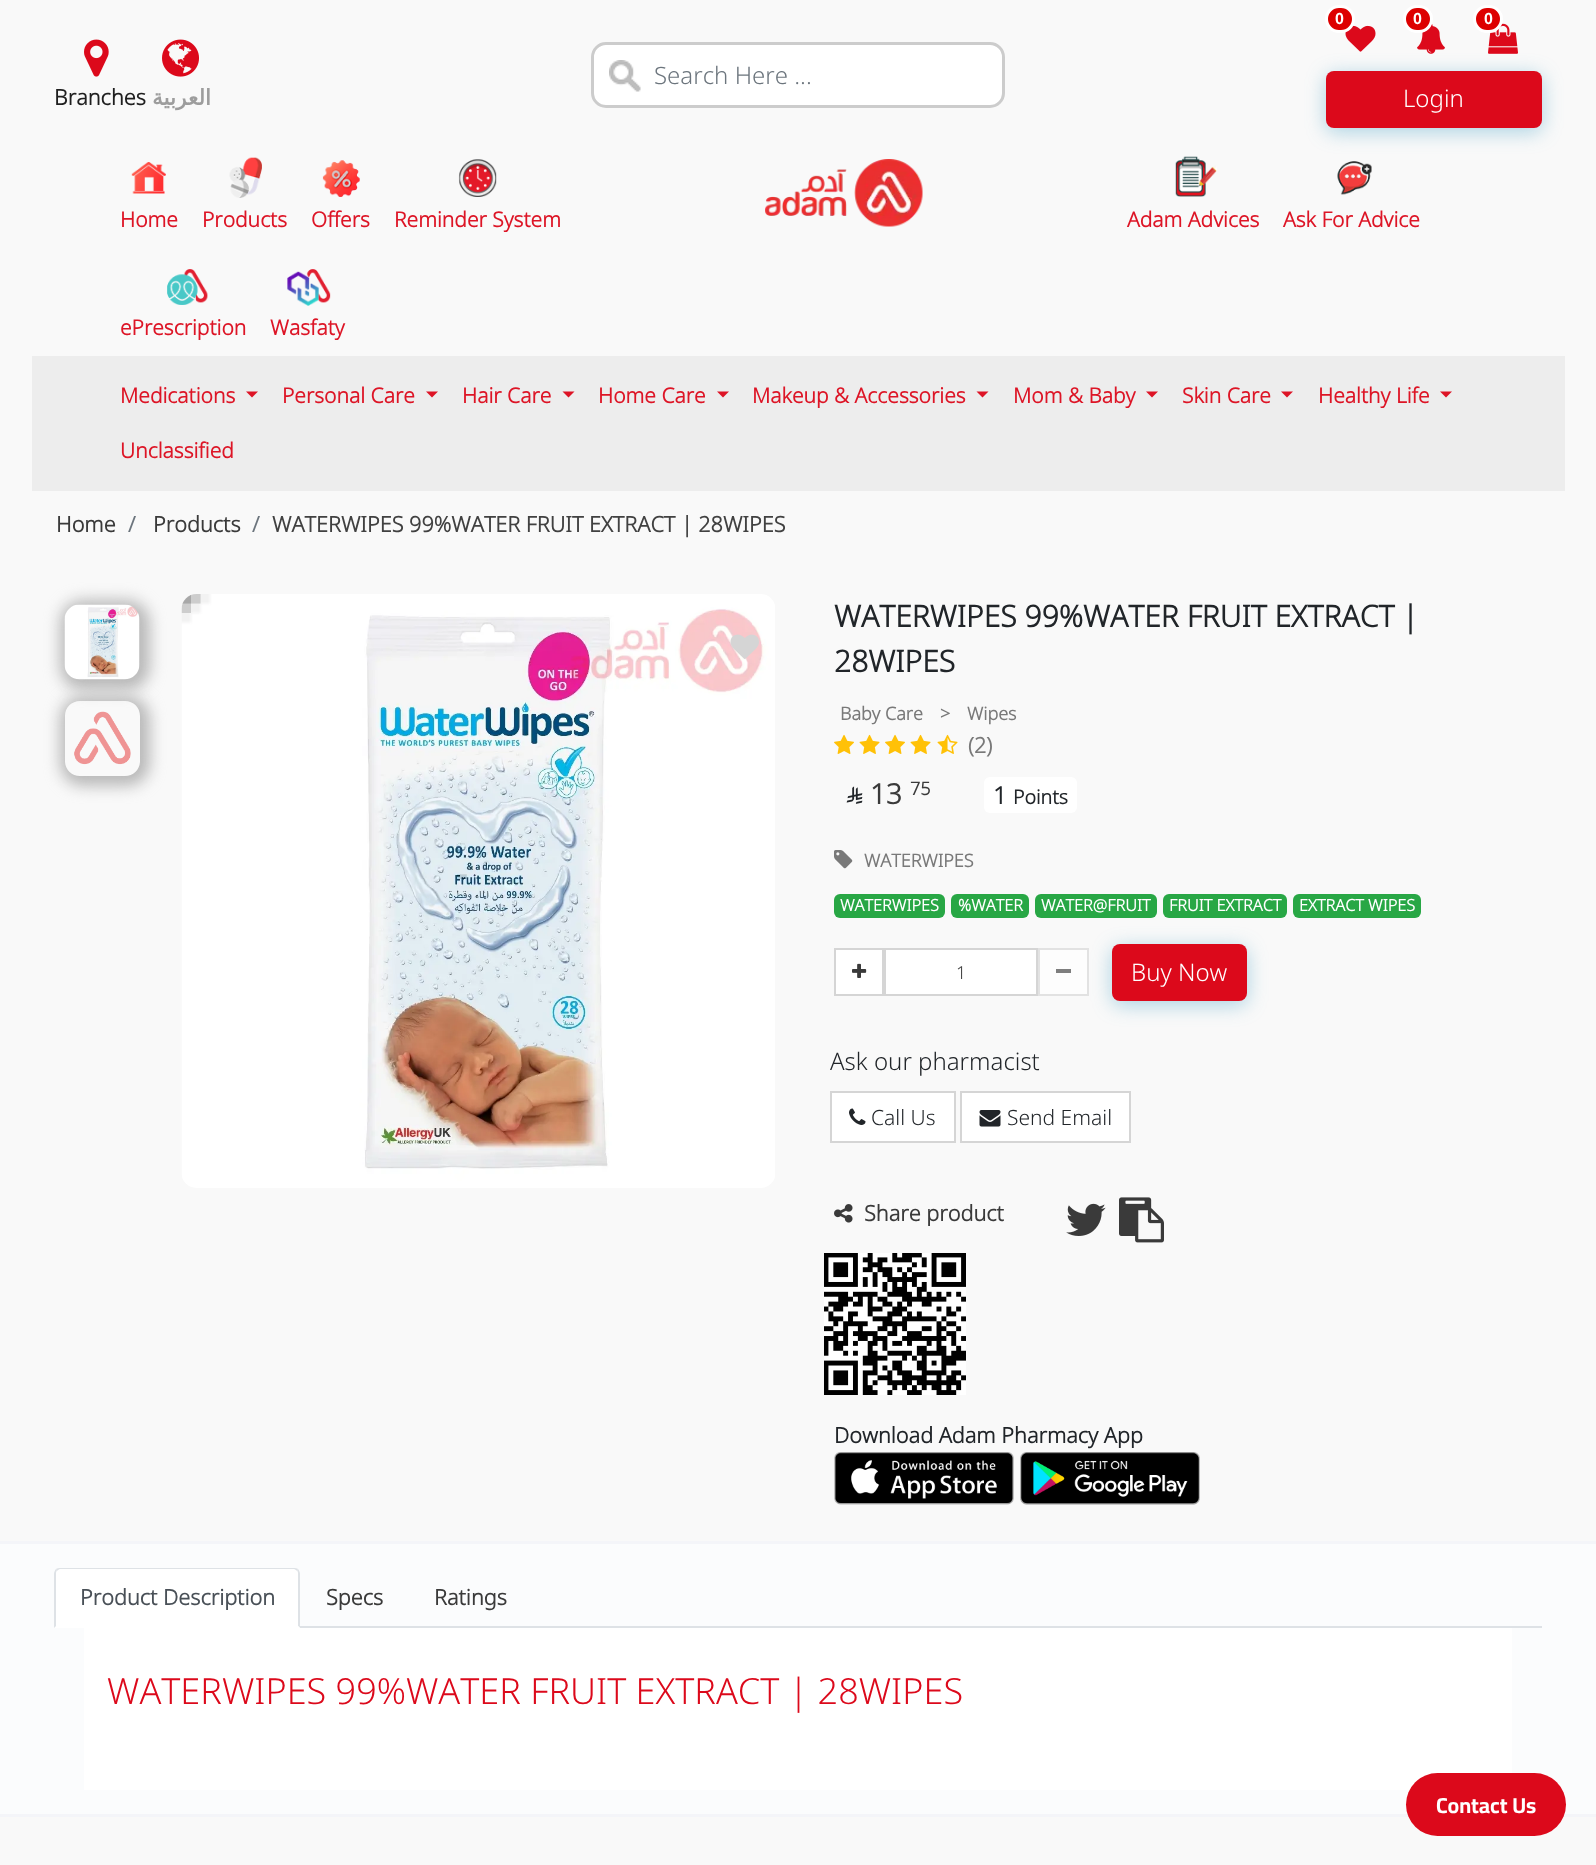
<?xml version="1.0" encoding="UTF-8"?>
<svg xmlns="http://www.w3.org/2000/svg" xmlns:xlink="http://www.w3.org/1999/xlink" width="1596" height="1865">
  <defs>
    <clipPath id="clip1"><path d="M 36 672 h 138 v 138 h -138 z m 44 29 h 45 c 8.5 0 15 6.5 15 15 v 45 c 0 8.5 -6.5 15 -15 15 h -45 c -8.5 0 -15 -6.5 -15 -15 v -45 c 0 -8.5 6.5 -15 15 -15 z" clip-rule="evenodd" /></clipPath>
  </defs>
  <rect width="100%" height="100%" fill="#f9f9f9" />
  <rect x="594" y="45" width="408" height="60" rx="12" fill="#ffffff" />
  <image x="609" y="60" width="32" height="32" xlink:href="image1.png" />
  <rect x="592.5" y="43.5" width="411" height="63" rx="13.5" fill="none" stroke="#cccccc" stroke-width="3" />
  <image x="1345" y="25" width="31" height="27" xlink:href="image2.png" />
  <rect x="1326.5" y="6.5" width="27" height="25" rx="12.5" fill="#dd0000" stroke="#ffffff" stroke-width="3" />
  <image x="1417" y="24" width="28" height="30" xlink:href="image3.png" />
  <rect x="1404.5" y="6.5" width="27" height="25" rx="12.5" fill="#dd0000" stroke="#ffffff" stroke-width="3" />
  <image x="1488" y="23" width="30" height="31" xlink:href="image4.png" />
  <rect x="1474.5" y="6.5" width="27" height="25" rx="12.5" fill="#dd0000" stroke="#ffffff" stroke-width="3" />
  <rect x="1326" y="75" width="216" height="57" rx="8" fill="#2a92bd" fill-opacity="0.38" filter="blur(10px)" />
  <rect x="1326" y="71" width="216" height="57" rx="8" fill="#dc091b" />
  <image x="84" y="39" width="25" height="38" xlink:href="image5.png" />
  <image x="162" y="39" width="37" height="38" xlink:href="image6.png" />
  <image x="131" y="162" width="35" height="32" xlink:href="image7.png" />
  <image x="229" y="157" width="33" height="41" xlink:href="image8.png" />
  <image x="322" y="160" width="38" height="37" xlink:href="image9.png" />
  <image x="458" y="159" width="39" height="38" xlink:href="image10.png" />
  <image x="765" y="159" width="158" height="68" xlink:href="image11.png" />
  <image x="1175" y="156" width="42" height="41" xlink:href="image12.png" />
  <image x="1337" y="161" width="35" height="34" xlink:href="image13.png" />
  <image x="167" y="269" width="41" height="36" xlink:href="image14.png" />
  <image x="287" y="269" width="44" height="37" xlink:href="image15.png" />
  <rect x="32" y="356" width="1533" height="135" fill="#ededed" />
  <path d="M 246 391.5 h 12 l -6 6 z" fill="#dd1426" />
  <path d="M 426 391.5 h 12 l -6 6 z" fill="#dd1426" />
  <path d="M 562.5 391.5 h 12 l -6 6 z" fill="#dd1426" />
  <path d="M 717 391.5 h 12 l -6 6 z" fill="#dd1426" />
  <path d="M 976.5 391.5 h 12 l -6 6 z" fill="#dd1426" />
  <path d="M 1146 391.5 h 12 l -6 6 z" fill="#dd1426" />
  <path d="M 1281 391.5 h 12 l -6 6 z" fill="#dd1426" />
  <path d="M 1440 391.5 h 12 l -6 6 z" fill="#dd1426" />
  <rect x="60" y="600" width="90" height="90" rx="23" fill="#b8b8b8" filter="blur(7.5px)" />
  <image x="64" y="604" width="76" height="76" xlink:href="image16.png" />
  <g clip-path="url(#clip1)">
    <rect x="60" y="696" width="90" height="90" rx="23" fill="#b8b8b8" filter="blur(7.5px)" />
  </g>
  <image x="74" y="711" width="57" height="54" xlink:href="image17.png" />
  <image x="181" y="594" width="594" height="594" xlink:href="image18.png" />
  <image x="730" y="634" width="29" height="25" xlink:href="image19.png" />
  <image x="834" y="734" width="20" height="20" xlink:href="image20.png" />
  <image x="859" y="734" width="21" height="20" xlink:href="image21.png" />
  <image x="885" y="734" width="20" height="20" xlink:href="image20.png" />
  <image x="910" y="734" width="21" height="20" xlink:href="image21.png" />
  <image x="937" y="734" width="21" height="20" xlink:href="image22.png" />
  <image x="846" y="786" width="17" height="18" xlink:href="image23.png" />
  <rect x="984" y="777" width="93" height="36" rx="6" fill="#ffffff" />
  <image x="834" y="850" width="19" height="19" xlink:href="image24.png" />
  <rect x="834" y="894" width="111" height="24" rx="6" fill="#28a745" />
  <rect x="951" y="894" width="78" height="24" rx="6" fill="#28a745" />
  <rect x="1035" y="894" width="122" height="24" rx="6" fill="#28a745" />
  <rect x="1163" y="894" width="124" height="24" rx="6" fill="#28a745" />
  <rect x="1293" y="894" width="128" height="24" rx="6" fill="#28a745" />
  <rect x="835" y="949" width="48" height="46" fill="#ffffff" stroke="#d5d5d5" stroke-width="2" />
  <image x="852" y="963" width="15" height="15" xlink:href="image25.png" />
  <rect x="885" y="949" width="152" height="46" fill="#ffffff" stroke="#d5d5d5" stroke-width="2" />
  <rect x="1039" y="949" width="49" height="46" fill="#fdfdfd" stroke="#e2e2e2" stroke-width="2" />
  <rect x="1056" y="969" width="15" height="4" fill="#7e7e7e" />
  <rect x="1112" y="948" width="135" height="57" rx="8" fill="#2a92bd" fill-opacity="0.38" filter="blur(10px)" />
  <rect x="1112" y="944" width="135" height="57" rx="8" fill="#dc091b" />
  <rect x="831" y="1092" width="124" height="50" fill="#ffffff" stroke="#d5d5d5" stroke-width="2" />
  <image x="849" y="1108" width="17" height="17" xlink:href="image26.png" />
  <rect x="961" y="1092" width="169" height="50" fill="#ffffff" stroke="#d5d5d5" stroke-width="2" />
  <image x="979" y="1110" width="22" height="17" xlink:href="image27.png" />
  <image x="834" y="1204" width="19" height="19" xlink:href="image28.png" />
  <image x="1066" y="1203" width="40" height="33" xlink:href="image29.png" />
  <image x="1119" y="1197" width="45" height="46" xlink:href="image30.png" />
  <image x="824" y="1253" width="142" height="142" xlink:href="image31.png" />
  <image x="834" y="1452" width="180" height="53" xlink:href="image32.png" />
  <image x="1020" y="1452" width="180" height="53" xlink:href="image33.png" />
  <rect y="1544" width="1596" height="270" fill="#fbfcfd" />
  <rect y="1541" width="1596" height="3" fill="#f4f5f9" />
  <rect y="1814" width="1596" height="3" fill="#f4f5f9" />
  <rect x="300" y="1626" width="1242" height="2" fill="#dee2e6" />
  <path d="M 60 1568 h 234 c 3.5 0 6 2.5 6 6 v 54 h -246 v -54 c 0 -3.5 2.5 -6 6 -6 z" fill="#ffffff" />
  <path d="M 60 1568 c -1 0 -3 0 -4 1 l 1 2 c 1 -1 2 -2 3 -2 h 234 c 1 0 2 1 3 2 l 1 -2 c -1 -1 -3 -1 -4 -1 z" fill="#dee2e6" />
  <path d="M 298 1569 c 1 1 2 3 2 5 v 54 l -2 -2 v -52 c 0 -1 0 -3 -1 -3 z" fill="#dee2e6" />
  <path d="M 300 1628 h -246 l 2 -2 h 242 z" fill="#ffffff" />
  <path d="M 54 1628 l 2 -2 v -52 c 0 -1 0 -3 1 -3 l -1 -2 c -1 1 -2 3 -2 5 z" fill="#dee2e6" />
  <rect x="84" y="1628" width="1428" height="162" fill="#ffffff" />
  <rect x="1406" y="1773" width="160" height="63" rx="31.5" fill="#dc091b" />
  <text x="654" y="84" style="font-family: Noto Sans; font-size: 24px; font-weight: 300; fill: #6c757d">Search Here ...</text>
  <text x="1335" y="24" style="font-family: Liberation Sans; font-size: 16px; font-weight: bold; fill: #ffffff">0</text>
  <text x="1413" y="24" style="font-family: Liberation Sans; font-size: 16px; font-weight: bold; fill: #ffffff">0</text>
  <text x="1484" y="24" style="font-family: Liberation Sans; font-size: 16px; font-weight: bold; fill: #ffffff">0</text>
  <text x="1403" y="107" style="font-family: Noto Sans; font-size: 24px; font-weight: 300; fill: #ffffff">Login</text>
  <text x="54" y="105" style="font-family: Noto Sans; font-size: 21.6px; font-weight: bold; fill: #1f1f1f">Branches</text>
  <text x="211" y="105" style="font-family: DejaVu Sans; font-size: 21.6px; font-weight: bold; direction: rtl; fill: #9d9d9d">العربية</text>
  <text x="120" y="227" style="font-family: Noto Sans; font-size: 21px; font-weight: bold; fill: #dd1526">Home</text>
  <text x="202" y="227" style="font-family: Noto Sans; font-size: 21px; font-weight: bold; fill: #dd1526">Products</text>
  <text x="311" y="227" style="font-family: Noto Sans; font-size: 21px; font-weight: bold; fill: #dd1526">Offers</text>
  <text x="394" y="227" style="font-family: Noto Sans; font-size: 21px; font-weight: bold; fill: #dd1526">Reminder System</text>
  <text x="1127" y="227" style="font-family: Noto Sans; font-size: 21px; font-weight: bold; fill: #dd1526">Adam Advices</text>
  <text x="1283" y="227" style="font-family: Noto Sans; font-size: 21px; font-weight: bold; fill: #dd1526">Ask For Advice</text>
  <text x="120" y="335" style="font-family: Noto Sans; font-size: 21px; font-weight: bold; fill: #dd1526">ePrescription</text>
  <text x="270" y="335" style="font-family: Noto Sans; font-size: 21px; font-weight: bold; fill: #dd1526">Wasfaty</text>
  <text x="120" y="403" style="font-family: Noto Sans; font-size: 21px; font-weight: bold; fill: #dd1526">Medications</text>
  <text x="282" y="403" style="font-family: Noto Sans; font-size: 21px; font-weight: bold; fill: #dd1526">Personal Care</text>
  <text x="462" y="403" style="font-family: Noto Sans; font-size: 21px; font-weight: bold; fill: #dd1526">Hair Care</text>
  <text x="598" y="403" style="font-family: Noto Sans; font-size: 21px; font-weight: bold; fill: #dd1526">Home Care</text>
  <text x="752" y="403" style="font-family: Noto Sans; font-size: 21px; font-weight: bold; fill: #dd1526">Makeup &amp; Accessories</text>
  <text x="1013" y="403" style="font-family: Noto Sans; font-size: 21px; font-weight: bold; fill: #dd1526">Mom &amp; Baby</text>
  <text x="1182" y="403" style="font-family: Noto Sans; font-size: 21px; font-weight: bold; fill: #dd1526">Skin Care</text>
  <text x="1318" y="403" style="font-family: Noto Sans; font-size: 21px; font-weight: bold; fill: #dd1526">Healthy Life</text>
  <text x="120" y="458" style="font-family: Noto Sans; font-size: 21px; font-weight: bold; fill: #dd1526">Unclassified</text>
  <text x="56" y="532" style="font-family: Noto Sans; font-size: 21.6px; font-weight: bold; fill: #3a3a3a">Home</text>
  <text x="128" y="532" style="font-family: Noto Sans; font-size: 21.6px; font-weight: bold; fill: #6c757d">/</text>
  <text x="153" y="532" style="font-family: Noto Sans; font-size: 21.6px; font-weight: bold; fill: #3a3a3a">Products</text>
  <text x="252" y="532" style="font-family: Noto Sans; font-size: 21.6px; font-weight: bold; fill: #6c757d">/</text>
  <text x="272" y="532" style="font-family: Noto Sans; font-size: 21.6px; font-weight: bold; fill: #414141">WATERWIPES 99%WATER FRUIT EXTRACT | 28WIPES</text>
  <text x="834" y="627" style="font-family: Noto Sans; font-size: 30px; font-weight: bold; fill: #212529">WATERWIPES 99%WATER FRUIT EXTRACT |</text>
  <text x="834" y="672" style="font-family: Noto Sans; font-size: 30px; font-weight: bold; fill: #212529">28WIPES</text>
  <text x="840" y="720" style="font-family: Noto Sans; font-size: 18px; font-weight: bold; fill: #797979">Baby Care</text>
  <text x="940" y="720" style="font-family: Noto Sans; font-size: 18px; font-weight: bold; fill: #797979">&gt;</text>
  <text x="967" y="720" style="font-family: Noto Sans; font-size: 18px; font-weight: bold; fill: #797979">Wipes</text>
  <text x="968" y="753" style="font-family: Noto Sans; font-size: 21.6px; font-weight: bold; fill: #797979">(2)</text>
  <text x="870" y="804" style="font-family: Noto Sans; font-size: 28px; font-weight: bold; fill: #3a3a3a">13</text>
  <text x="910" y="795" style="font-family: Noto Sans; font-size: 18px; font-weight: bold; fill: #3a3a3a">75</text>
  <text x="993" y="804" style="font-family: Noto Sans; font-size: 24px; font-weight: bold; fill: #212529">1</text>
  <text x="1013" y="804" style="font-family: Noto Sans; font-size: 19.5px; font-weight: bold; fill: #212529">Points</text>
  <text x="864" y="867" style="font-family: Noto Sans; font-size: 18px; font-weight: bold; fill: #797979">WATERWIPES</text>
  <text x="840" y="911" style="font-family: Noto Sans; font-size: 16.25px; font-weight: bold; fill: #ffffff">WATERWIPES</text>
  <text x="958" y="911" style="font-family: Noto Sans; font-size: 16.25px; font-weight: bold; fill: #ffffff">%WATER</text>
  <text x="1041" y="911" style="font-family: Noto Sans; font-size: 16.25px; font-weight: bold; fill: #ffffff">WATER@FRUIT</text>
  <text x="1169" y="911" style="font-family: Noto Sans; font-size: 16.25px; font-weight: bold; fill: #ffffff">FRUIT EXTRACT</text>
  <text x="1299" y="911" style="font-family: Noto Sans; font-size: 16.25px; font-weight: bold; fill: #ffffff">EXTRACT WIPES</text>
  <text x="956" y="979" style="font-family: Noto Sans; font-size: 18px; font-weight: 300; fill: #3a3a3a">1</text>
  <text x="1131" y="981" style="font-family: Noto Sans; font-size: 24px; font-weight: 300; fill: #ffffff">Buy Now</text>
  <text x="830" y="1070" style="font-family: Noto Sans; font-size: 24px; font-weight: 300; fill: #212529">Ask our pharmacist</text>
  <text x="871" y="1125" style="font-family: Noto Sans; font-size: 21px; font-weight: 300; fill: #212529">Call Us</text>
  <text x="1007" y="1125" style="font-family: Noto Sans; font-size: 21px; font-weight: 300; fill: #212529">Send Email</text>
  <text x="864" y="1221" style="font-family: Noto Sans; font-size: 21.6px; font-weight: bold; fill: #3a3a3a">Share product</text>
  <text x="834" y="1443" style="font-family: Noto Sans; font-size: 21.6px; font-weight: bold; fill: #212529">Download Adam Pharmacy App</text>
  <text x="80" y="1605" style="font-family: Noto Sans; font-size: 21.6px; font-weight: bold; fill: #495057">Product Description</text>
  <text x="326" y="1605" style="font-family: Noto Sans; font-size: 21.6px; font-weight: bold; fill: #3a3a3a">Specs</text>
  <text x="434" y="1605" style="font-family: Noto Sans; font-size: 21.6px; font-weight: bold; fill: #3a3a3a">Ratings</text>
  <text x="107" y="1704" style="font-family: Noto Sans; font-size: 36px; font-weight: 300; fill: #dc091b">WATERWIPES 99%WATER FRUIT EXTRACT | 28WIPES</text>
  <text x="1436" y="1813" style="font-family: Cairo; font-size: 21.6px; font-weight: bold; fill: #ffffff">Contact Us</text>
</svg>
